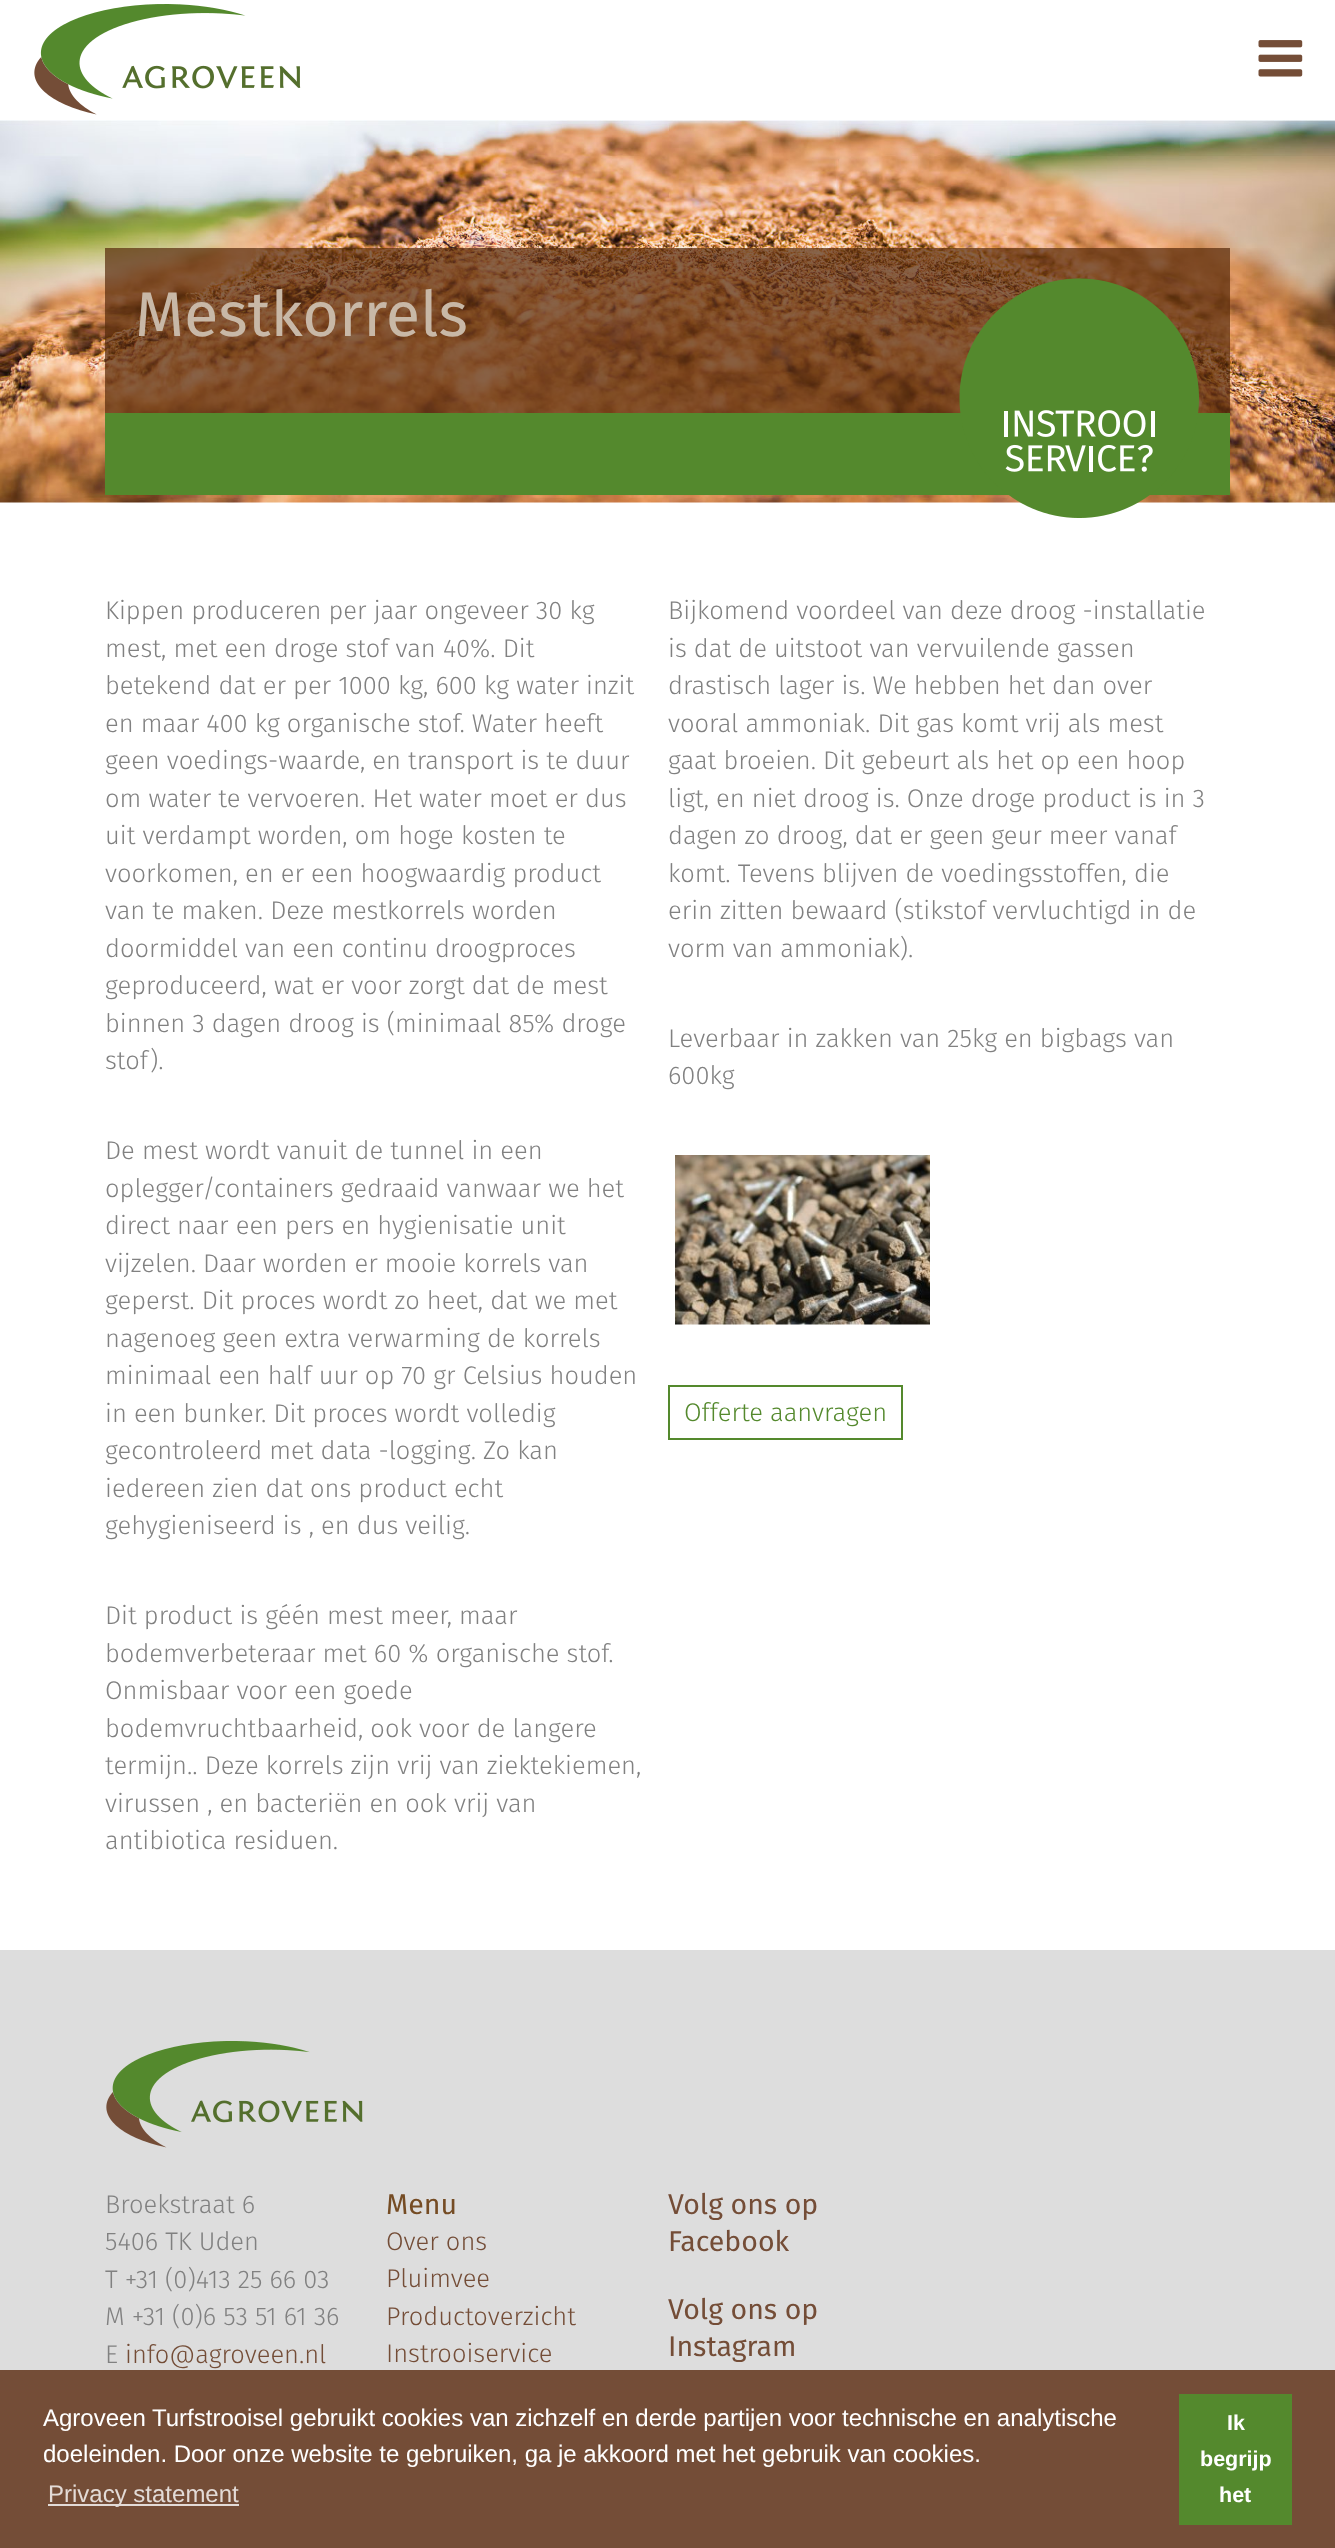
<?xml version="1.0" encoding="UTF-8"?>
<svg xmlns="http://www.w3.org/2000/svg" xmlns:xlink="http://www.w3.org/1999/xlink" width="1335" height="2548">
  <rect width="100%" height="100%" fill="#ffffff" />
  <image x="34" y="4" width="267" height="111" xlink:href="image1.png" />
  <image x="1258" y="40" width="45" height="37" xlink:href="image2.png" />
  <image x="0" y="120" width="1335" height="383" xlink:href="image3.png" />
  <rect x="105" y="248" width="1125" height="165" fill="#562a0a" fill-opacity="0.7" />
  <rect x="105" y="413" width="1125" height="82" fill="#54892d" />
  <image x="959" y="278" width="240" height="240" xlink:href="image4.png" />
  <image x="675" y="1155" width="255" height="170" xlink:href="image5.png" />
  <rect x="669" y="1386" width="233" height="53" fill="none" stroke="#54892d" stroke-width="2" />
  <rect y="1950" width="1335" height="420" fill="#dddddd" />
  <image x="106" y="2041" width="257" height="107" xlink:href="image6.png" />
  <rect y="2370" width="1335" height="178" fill="#744d37" />
  <rect x="48" y="2504" width="191" height="2" fill="#e3dbd7" />
  <rect x="1179" y="2394" width="113" height="131" fill="#54892d" />
  <text x="135" y="336" style="font-family: Fira Sans; font-size: 63px; fill: #c8b8a7">Mestkorrels</text>
  <text x="105" y="619" style="font-family: Fira Sans; font-size: 25.5px; font-weight: 300; fill: #818181">Kippen produceren per jaar ongeveer 30 kg</text>
  <text x="105" y="657" style="font-family: Fira Sans; font-size: 25.5px; font-weight: 300; fill: #818181">mest, met een droge stof van 40%. Dit</text>
  <text x="105" y="694" style="font-family: Fira Sans; font-size: 25.5px; font-weight: 300; fill: #818181">betekend dat er per 1000 kg, 600 kg water inzit</text>
  <text x="105" y="732" style="font-family: Fira Sans; font-size: 25.5px; font-weight: 300; fill: #818181">en maar 400 kg organische stof. Water heeft</text>
  <text x="105" y="769" style="font-family: Fira Sans; font-size: 25.5px; font-weight: 300; fill: #818181">geen voedings-waarde, en transport is te duur</text>
  <text x="105" y="807" style="font-family: Fira Sans; font-size: 25.5px; font-weight: 300; fill: #818181">om water te vervoeren. Het water moet er dus</text>
  <text x="105" y="844" style="font-family: Fira Sans; font-size: 25.5px; font-weight: 300; fill: #818181">uit verdampt worden, om hoge kosten te</text>
  <text x="105" y="882" style="font-family: Fira Sans; font-size: 25.5px; font-weight: 300; fill: #818181">voorkomen, en er een hoogwaardig product</text>
  <text x="105" y="919" style="font-family: Fira Sans; font-size: 25.5px; font-weight: 300; fill: #818181">van te maken. Deze mestkorrels worden</text>
  <text x="105" y="957" style="font-family: Fira Sans; font-size: 25.5px; font-weight: 300; fill: #818181">doormiddel van een continu droogproces</text>
  <text x="105" y="994" style="font-family: Fira Sans; font-size: 25.5px; font-weight: 300; fill: #818181">geproduceerd, wat er voor zorgt dat de mest</text>
  <text x="105" y="1032" style="font-family: Fira Sans; font-size: 25.5px; font-weight: 300; fill: #818181">binnen 3 dagen droog is (minimaal 85% droge</text>
  <text x="105" y="1069" style="font-family: Fira Sans; font-size: 25.5px; font-weight: 300; fill: #818181">stof).</text>
  <text x="105" y="1159" style="font-family: Fira Sans; font-size: 25.5px; font-weight: 300; fill: #818181">De mest wordt vanuit de tunnel in een</text>
  <text x="105" y="1197" style="font-family: Fira Sans; font-size: 25.5px; font-weight: 300; fill: #818181">oplegger/containers gedraaid vanwaar we het</text>
  <text x="105" y="1234" style="font-family: Fira Sans; font-size: 25.5px; font-weight: 300; fill: #818181">direct naar een pers en hygienisatie unit</text>
  <text x="105" y="1272" style="font-family: Fira Sans; font-size: 25.5px; font-weight: 300; fill: #818181">vijzelen. Daar worden er mooie korrels van</text>
  <text x="105" y="1309" style="font-family: Fira Sans; font-size: 25.5px; font-weight: 300; fill: #818181">geperst. Dit proces wordt zo heet, dat we met</text>
  <text x="105" y="1347" style="font-family: Fira Sans; font-size: 25.5px; font-weight: 300; fill: #818181">nagenoeg geen extra verwarming de korrels</text>
  <text x="105" y="1384" style="font-family: Fira Sans; font-size: 25.5px; font-weight: 300; fill: #818181">minimaal een half uur op 70 gr Celsius houden</text>
  <text x="105" y="1422" style="font-family: Fira Sans; font-size: 25.5px; font-weight: 300; fill: #818181">in een bunker. Dit proces wordt volledig</text>
  <text x="105" y="1459" style="font-family: Fira Sans; font-size: 25.5px; font-weight: 300; fill: #818181">gecontroleerd met data -logging. Zo kan</text>
  <text x="105" y="1497" style="font-family: Fira Sans; font-size: 25.5px; font-weight: 300; fill: #818181">iedereen zien dat ons product echt</text>
  <text x="105" y="1534" style="font-family: Fira Sans; font-size: 25.5px; font-weight: 300; fill: #818181">gehygieniseerd is , en dus veilig.</text>
  <text x="105" y="1624" style="font-family: Fira Sans; font-size: 25.5px; font-weight: 300; fill: #818181">Dit product is géén mest meer, maar</text>
  <text x="105" y="1662" style="font-family: Fira Sans; font-size: 25.5px; font-weight: 300; fill: #818181">bodemverbeteraar met 60 % organische stof.</text>
  <text x="105" y="1699" style="font-family: Fira Sans; font-size: 25.5px; font-weight: 300; fill: #818181">Onmisbaar voor een goede</text>
  <text x="105" y="1737" style="font-family: Fira Sans; font-size: 25.5px; font-weight: 300; fill: #818181">bodemvruchtbaarheid, ook voor de langere</text>
  <text x="105" y="1774" style="font-family: Fira Sans; font-size: 25.5px; font-weight: 300; fill: #818181">termijn.. Deze korrels zijn vrij van ziektekiemen,</text>
  <text x="105" y="1812" style="font-family: Fira Sans; font-size: 25.5px; font-weight: 300; fill: #818181">virussen , en bacteriën en ook vrij van</text>
  <text x="105" y="1849" style="font-family: Fira Sans; font-size: 25.5px; font-weight: 300; fill: #818181">antibiotica residuen.</text>
  <text x="668" y="619" style="font-family: Fira Sans; font-size: 25.5px; font-weight: 300; fill: #818181">Bijkomend voordeel van deze droog -installatie</text>
  <text x="668" y="657" style="font-family: Fira Sans; font-size: 25.5px; font-weight: 300; fill: #818181">is dat de uitstoot van vervuilende gassen</text>
  <text x="668" y="694" style="font-family: Fira Sans; font-size: 25.5px; font-weight: 300; fill: #818181">drastisch lager is. We hebben het dan over</text>
  <text x="668" y="732" style="font-family: Fira Sans; font-size: 25.5px; font-weight: 300; fill: #818181">vooral ammoniak. Dit gas komt vrij als mest</text>
  <text x="668" y="769" style="font-family: Fira Sans; font-size: 25.5px; font-weight: 300; fill: #818181">gaat broeien. Dit gebeurt als het op een hoop</text>
  <text x="668" y="807" style="font-family: Fira Sans; font-size: 25.5px; font-weight: 300; fill: #818181">ligt, en niet droog is. Onze droge product is in 3</text>
  <text x="668" y="844" style="font-family: Fira Sans; font-size: 25.5px; font-weight: 300; fill: #818181">dagen zo droog, dat er geen geur meer vanaf</text>
  <text x="668" y="882" style="font-family: Fira Sans; font-size: 25.5px; font-weight: 300; fill: #818181">komt. Tevens blijven de voedingsstoffen, die</text>
  <text x="668" y="919" style="font-family: Fira Sans; font-size: 25.5px; font-weight: 300; fill: #818181">erin zitten bewaard (stikstof vervluchtigd in de</text>
  <text x="668" y="957" style="font-family: Fira Sans; font-size: 25.5px; font-weight: 300; fill: #818181">vorm van ammoniak).</text>
  <text x="668" y="1047" style="font-family: Fira Sans; font-size: 25.5px; font-weight: 300; fill: #818181">Leverbaar in zakken van 25kg en bigbags van</text>
  <text x="668" y="1084" style="font-family: Fira Sans; font-size: 25.5px; font-weight: 300; fill: #818181">600kg</text>
  <text x="684" y="1421" style="font-family: Fira Sans; font-size: 25.5px; font-weight: 300; fill: #54892d">Offerte aanvragen</text>
  <text x="105" y="2213" style="font-family: Fira Sans; font-size: 25.5px; font-weight: 300; fill: #818181">Broekstraat 6</text>
  <text x="105" y="2250" style="font-family: Fira Sans; font-size: 25.5px; font-weight: 300; fill: #818181">5406 TK Uden</text>
  <text x="105" y="2288" style="font-family: Fira Sans; font-size: 25.5px; font-weight: 300; fill: #818181">T +31 (0)413 25 66 03</text>
  <text x="105" y="2325" style="font-family: Fira Sans; font-size: 25.5px; font-weight: 300; fill: #818181">M +31 (0)6 53 51 61 36</text>
  <text x="105" y="2363" style="font-family: Fira Sans; font-size: 25.5px; font-weight: 300; fill: #818181">E</text>
  <text x="125" y="2363" style="font-family: Fira Sans; font-size: 25.5px; font-weight: 300; fill: #744d37">info@agroveen.nl</text>
  <text x="386" y="2214" style="font-family: Fira Sans; font-size: 28.5px; fill: #754c24">Menu</text>
  <text x="386" y="2250" style="font-family: Fira Sans; font-size: 25.5px; font-weight: 300; fill: #744d37">Over ons</text>
  <text x="386" y="2287" style="font-family: Fira Sans; font-size: 25.5px; font-weight: 300; fill: #744d37">Pluimvee</text>
  <text x="386" y="2325" style="font-family: Fira Sans; font-size: 25.5px; font-weight: 300; fill: #744d37">Productoverzicht</text>
  <text x="386" y="2362" style="font-family: Fira Sans; font-size: 25.5px; font-weight: 300; fill: #744d37">Instrooiservice</text>
  <text x="668" y="2214" style="font-family: Fira Sans; font-size: 28.5px; fill: #744d37">Volg ons op</text>
  <text x="668" y="2251" style="font-family: Fira Sans; font-size: 28.5px; fill: #744d37">Facebook</text>
  <text x="668" y="2319" style="font-family: Fira Sans; font-size: 28.5px; fill: #744d37">Volg ons op</text>
  <text x="668" y="2356" style="font-family: Fira Sans; font-size: 28.5px; fill: #744d37">Instagram</text>
  <text x="43" y="2426" style="font-family: Liberation Sans; font-size: 24px; fill: #ffffff">Agroveen Turfstrooisel gebruikt cookies van zichzelf en derde partijen voor technische en analytische</text>
  <text x="43" y="2462" style="font-family: Liberation Sans; font-size: 24px; fill: #ffffff">doeleinden. Door onze website te gebruiken, ga je akkoord met het gebruik van cookies.</text>
  <text x="48" y="2502" style="font-family: Liberation Sans; font-size: 24px; fill: #e3dbd7">Privacy statement</text>
  <text x="1227" y="2430" style="font-family: Liberation Sans; font-size: 21.5px; font-weight: bold; fill: #ffffff">Ik</text>
  <text x="1200" y="2466" style="font-family: Liberation Sans; font-size: 21.5px; font-weight: bold; fill: #ffffff">begrijp</text>
  <text x="1219" y="2502" style="font-family: Liberation Sans; font-size: 21.5px; font-weight: bold; fill: #ffffff">het</text>
</svg>
